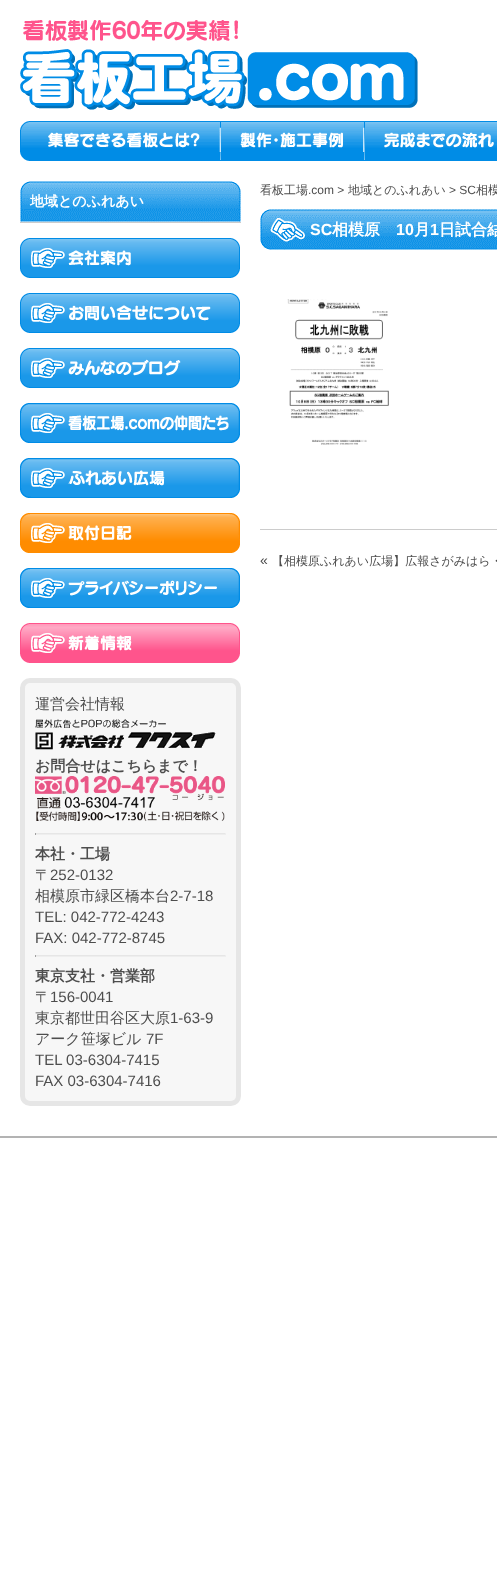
<?xml version="1.0" encoding="UTF-8"?>
<svg xmlns="http://www.w3.org/2000/svg" xmlns:xlink="http://www.w3.org/1999/xlink" width="497" height="1574">
  <rect width="100%" height="100%" fill="#ffffff" />
  <image x="20" y="20" width="398" height="90" xlink:href="image1.png" />
  <image x="20" y="121" width="477" height="40" xlink:href="image2.png" />
  <image x="21" y="122" width="199" height="38" xlink:href="image3.png" />
  <image x="221" y="122" width="143" height="38" xlink:href="image4.png" />
  <image x="365" y="122" width="132" height="38" xlink:href="image5.png" />
  <image x="20" y="181" width="221" height="41" xlink:href="image6.png" />
  <rect x="20" y="222" width="221" height="1" fill="#cccccc" />
  <image x="20" y="238" width="220" height="40" xlink:href="image7.png" />
  <image x="20" y="293" width="220" height="40" xlink:href="image8.png" />
  <image x="20" y="348" width="220" height="40" xlink:href="image9.png" />
  <image x="20" y="403" width="220" height="40" xlink:href="image10.png" />
  <image x="20" y="458" width="220" height="40" xlink:href="image11.png" />
  <image x="20" y="513" width="220" height="40" xlink:href="image12.png" />
  <image x="20" y="568" width="220" height="40" xlink:href="image13.png" />
  <image x="20" y="623" width="220" height="40" xlink:href="image14.png" />
  <rect x="22.5" y="680.5" width="216" height="423" rx="7.5" fill="#f7f7f7" stroke="#e6e6e6" stroke-width="5" />
  <image x="35" y="719" width="181" height="31" xlink:href="image15.png" />
  <image x="35" y="776" width="190" height="45" xlink:href="image16.png" />
  <rect x="35" y="833" width="191" height="1" fill="#e6e6e6" />
  <rect x="225" y="833" width="1" height="2" fill="#eeeeee" />
  <rect x="35" y="834" width="191" height="1" fill="#eeeeee" />
  <rect x="35" y="833" width="1" height="2" fill="#9f9f9f" />
  <rect x="35" y="955" width="191" height="1" fill="#e6e6e6" />
  <rect x="225" y="955" width="1" height="2" fill="#eeeeee" />
  <rect x="35" y="956" width="191" height="1" fill="#eeeeee" />
  <rect x="35" y="955" width="1" height="2" fill="#9f9f9f" />
  <image x="260" y="209" width="237" height="41" xlink:href="image17.png" />
  <image x="287" y="299" width="102" height="146" xlink:href="image18.png" />
  <rect x="260" y="529" width="237" height="1" fill="#cccccc" />
  <rect y="1136" width="497" height="2" fill="#b3b3b3" />
  <text x="30" y="206" style="font-family: WenQuanYi Zen Hei; font-size: 14px; font-weight: bold; fill: #ffffff">地域とのふれあい</text>
  <text x="35" y="709" style="font-family: WenQuanYi Zen Hei; font-size: 15px; font-weight: 500; fill: #4d4d4d">運営会社情報</text>
  <text x="35" y="771" style="font-family: WenQuanYi Zen Hei; font-size: 15px; font-weight: bold; fill: #4d4d4d">お問合せはこちらまで！</text>
  <text x="35" y="859" style="font-family: WenQuanYi Zen Hei; font-size: 15px; font-weight: bold; fill: #4d4d4d">本社・工場</text>
  <text x="35" y="880" style="font-family: WenQuanYi Zen Hei; font-size: 15px; font-weight: 500; fill: #4d4d4d">〒</text>
  <text x="50" y="880" style="font-family: Liberation Sans; font-size: 15px; fill: #4d4d4d">252-0132</text>
  <text x="35" y="901" style="font-family: WenQuanYi Zen Hei; font-size: 15px; font-weight: 500; fill: #4d4d4d">相模原市緑区橋本台</text>
  <text x="170" y="901" style="font-family: Liberation Sans; font-size: 15px; fill: #4d4d4d">2-7-18</text>
  <text x="35" y="922" style="font-family: Liberation Sans; font-size: 15px; fill: #4d4d4d">TEL: 042-772-4243</text>
  <text x="35" y="943" style="font-family: Liberation Sans; font-size: 15px; fill: #4d4d4d">FAX: 042-772-8745</text>
  <text x="35" y="981" style="font-family: WenQuanYi Zen Hei; font-size: 15px; font-weight: bold; fill: #4d4d4d">東京支社・営業部</text>
  <text x="35" y="1002" style="font-family: WenQuanYi Zen Hei; font-size: 15px; font-weight: 500; fill: #4d4d4d">〒</text>
  <text x="50" y="1002" style="font-family: Liberation Sans; font-size: 15px; fill: #4d4d4d">156-0041</text>
  <text x="35" y="1023" style="font-family: WenQuanYi Zen Hei; font-size: 15px; font-weight: 500; fill: #4d4d4d">東京都世田谷区大原</text>
  <text x="170" y="1023" style="font-family: Liberation Sans; font-size: 15px; fill: #4d4d4d">1-63-9</text>
  <text x="35" y="1044" style="font-family: WenQuanYi Zen Hei; font-size: 15px; font-weight: 500; fill: #4d4d4d">アーク笹塚ビル</text>
  <text x="146" y="1044" style="font-family: Liberation Sans; font-size: 15px; fill: #4d4d4d">7F</text>
  <text x="35" y="1065" style="font-family: Liberation Sans; font-size: 15px; fill: #4d4d4d">TEL 03-6304-7415</text>
  <text x="35" y="1086" style="font-family: Liberation Sans; font-size: 15px; fill: #4d4d4d">FAX 03-6304-7416</text>
  <text x="260" y="194" style="font-family: WenQuanYi Zen Hei; font-size: 12px; font-weight: 500; fill: #4d4d4d">看板工場</text>
  <text x="308" y="194" style="font-family: Liberation Sans; font-size: 12px; fill: #4d4d4d">.com &gt;</text>
  <text x="348" y="194" style="font-family: WenQuanYi Zen Hei; font-size: 12px; font-weight: 500; fill: #4d4d4d">地域とのふれあい</text>
  <text x="449" y="194" style="font-family: Liberation Sans; font-size: 12px; fill: #4d4d4d">&gt; SC</text>
  <text x="476" y="194" style="font-family: WenQuanYi Zen Hei; font-size: 12px; font-weight: 500; fill: #4d4d4d">相模</text>
  <text x="310" y="235" style="font-family: Liberation Sans; font-size: 16px; font-weight: bold; fill: #ffffff">SC</text>
  <text x="332" y="235" style="font-family: WenQuanYi Zen Hei; font-size: 16px; font-weight: bold; fill: #ffffff">相模原</text>
  <text x="396" y="235" style="font-family: Liberation Sans; font-size: 16px; font-weight: bold; fill: #ffffff">10</text>
  <text x="414" y="235" style="font-family: WenQuanYi Zen Hei; font-size: 16px; font-weight: bold; fill: #ffffff">月</text>
  <text x="430" y="235" style="font-family: Liberation Sans; font-size: 16px; font-weight: bold; fill: #ffffff">1</text>
  <text x="439" y="235" style="font-family: WenQuanYi Zen Hei; font-size: 16px; font-weight: bold; fill: #ffffff">日試合結</text>
  <text x="260" y="565" style="font-family: Liberation Sans; font-size: 14px; fill: #4d4d4d">«</text>
  <text x="272" y="565" style="font-family: WenQuanYi Zen Hei; font-size: 12px; font-weight: 500; fill: #4d4d4d">【相模原ふれあい広場】広報さがみはら・</text>
</svg>
